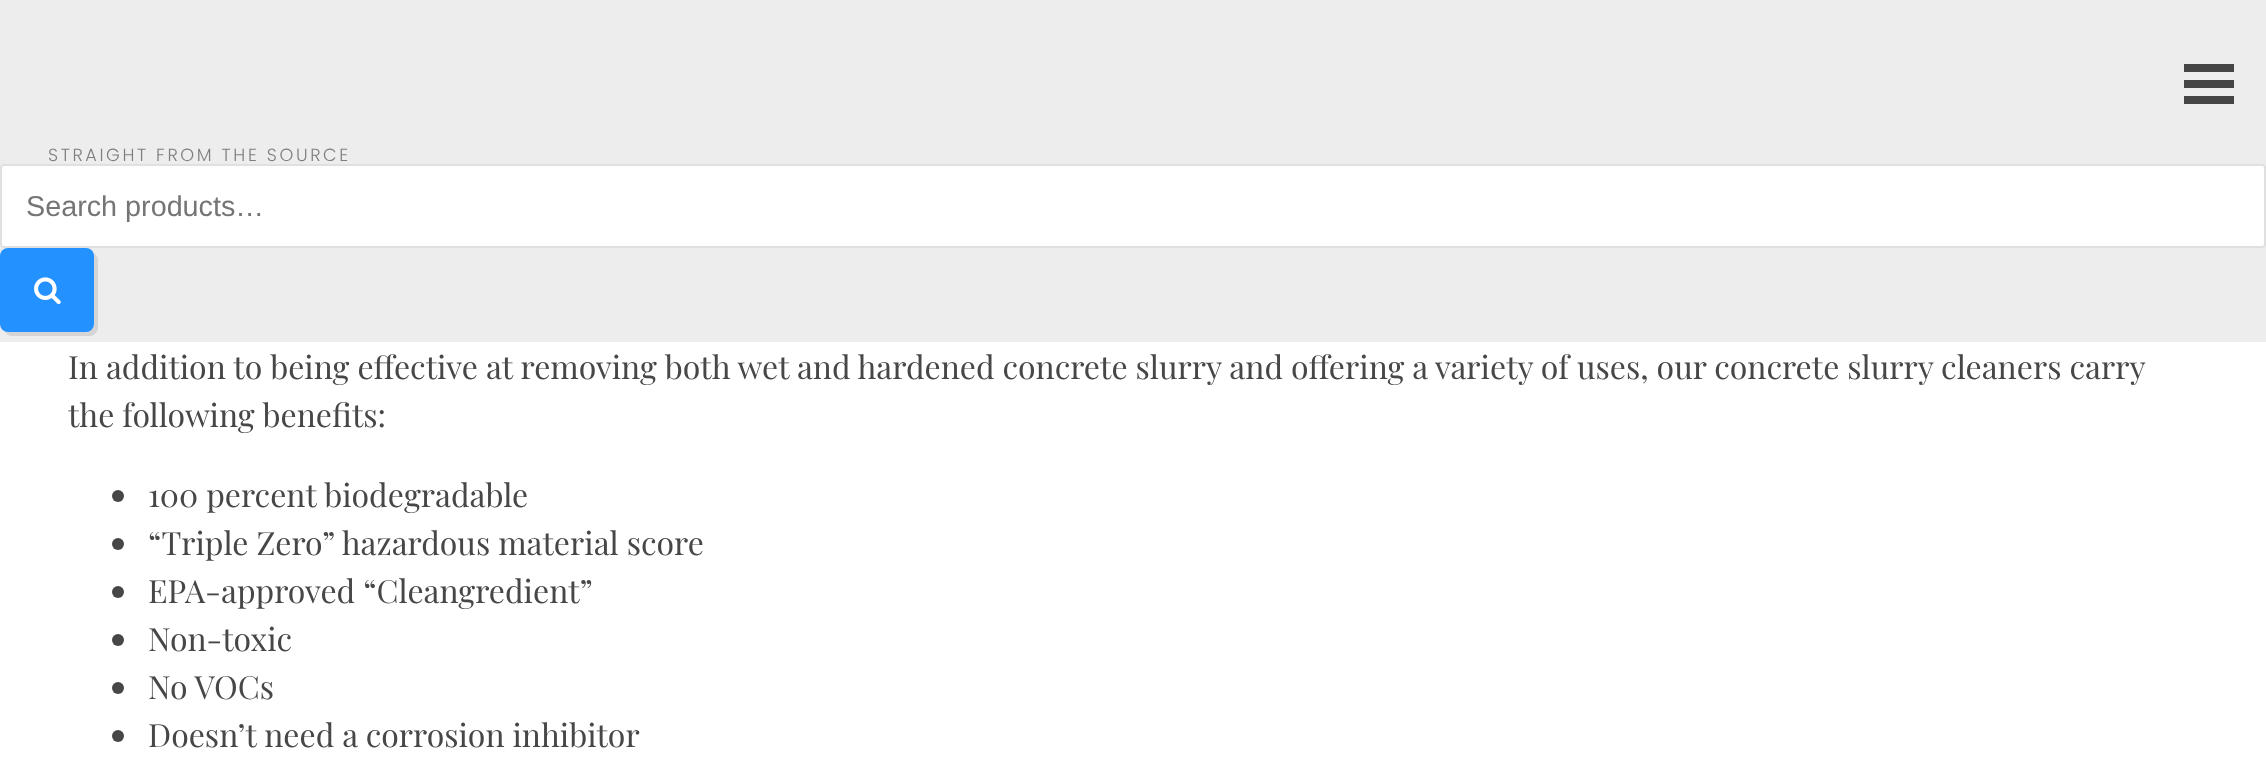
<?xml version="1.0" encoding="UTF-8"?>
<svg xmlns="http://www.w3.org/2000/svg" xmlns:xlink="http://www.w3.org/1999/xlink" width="2266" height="777">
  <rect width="100%" height="100%" fill="#ffffff" />
  <rect width="2266" height="342" fill="#ededed" />
  <rect x="2184" y="64" width="50" height="8" fill="#454545" />
  <rect x="2184" y="80" width="50" height="8" fill="#454545" />
  <rect x="2184" y="96" width="50" height="8" fill="#454545" />
  <rect x="1" y="165" width="2264" height="82" rx="3" fill="#ffffff" stroke="#e0e0e0" stroke-width="2" />
  <path d="M 5 331 c 1 3 4 5 7 5 h 78 c 4 0 8 -4 8 -8 v -68 c 0 -3 -2 -6 -5 -7 l 1 3 v 68 c 0 4 -4 8 -8 8 h -78 z" fill="#d5d5d5" />
  <rect y="248" width="94" height="84" rx="8" fill="#2391ff" />
  <image x="34" y="277" width="27" height="28" xlink:href="image1.png" />
  <circle cx="118" cy="496" r="6" fill="#474747" />
  <circle cx="118" cy="544" r="6" fill="#474747" />
  <circle cx="118" cy="592" r="6" fill="#474747" />
  <circle cx="118" cy="640" r="6" fill="#474747" />
  <circle cx="118" cy="688" r="6" fill="#474747" />
  <circle cx="118" cy="736" r="6" fill="#474747" />
  <text x="48" y="161" style="font-family: Poppins; font-size: 17.6px; font-weight: 300; letter-spacing: 2.6px; fill: #7e7e7e">STRAIGHT FROM THE SOURCE</text>
  <text x="26" y="216" style="font-family: Liberation Sans; font-size: 28.75px; fill: #757575">Search products…</text>
  <text x="68" y="379" style="font-family: Playfair Display; font-size: 32px; fill: #474747">In addition to being effective at removing both wet and hardened concrete slurry and offering a variety of uses, our concrete slurry cleaners carry</text>
  <text x="68" y="427" style="font-family: Playfair Display; font-size: 32px; fill: #474747">the following benefits:</text>
  <text x="148" y="507" style="font-family: Playfair Display; font-size: 32px; fill: #474747">100 percent biodegradable</text>
  <text x="148" y="555" style="font-family: Playfair Display; font-size: 32px; fill: #474747">“Triple Zero” hazardous material score</text>
  <text x="148" y="603" style="font-family: Playfair Display; font-size: 32px; fill: #474747">EPA-approved “Cleangredient”</text>
  <text x="148" y="651" style="font-family: Playfair Display; font-size: 32px; fill: #474747">Non-toxic</text>
  <text x="148" y="699" style="font-family: Playfair Display; font-size: 32px; fill: #474747">No VOCs</text>
  <text x="148" y="747" style="font-family: Playfair Display; font-size: 32px; fill: #474747">Doesn’t need a corrosion inhibitor</text>
</svg>
